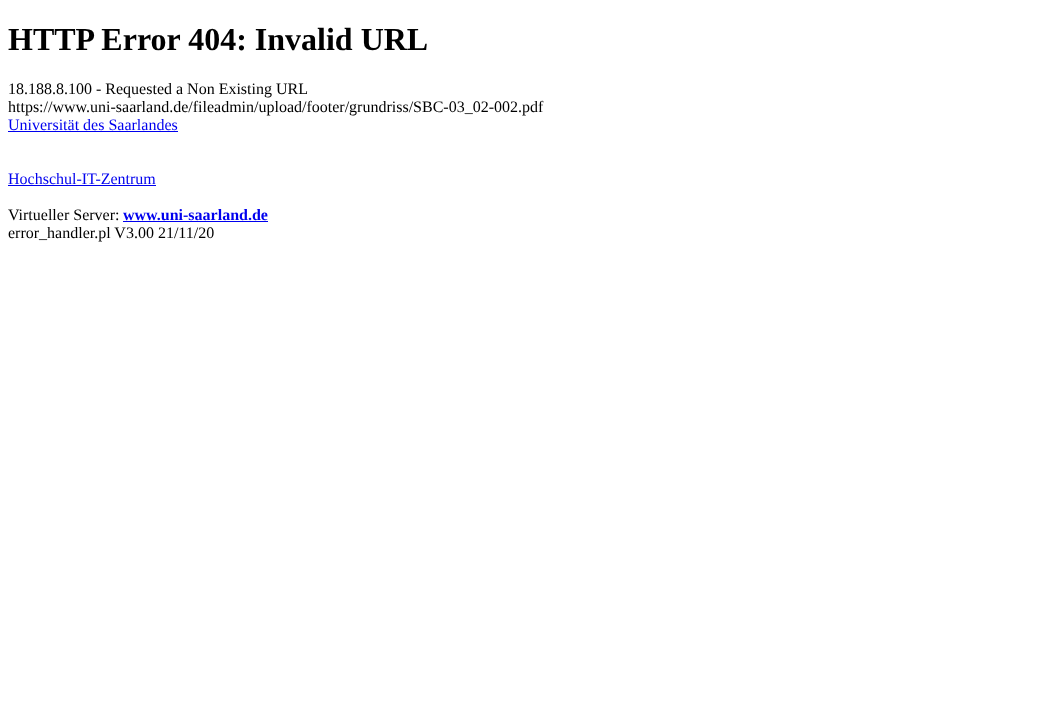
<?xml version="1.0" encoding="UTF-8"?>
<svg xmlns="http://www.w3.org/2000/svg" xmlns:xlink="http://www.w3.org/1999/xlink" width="1054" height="719">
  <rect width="100%" height="100%" fill="#ffffff" />
  <rect x="8" y="131" width="170" height="1" fill="#0000ee" />
  <rect x="8" y="185" width="148" height="1" fill="#0000ee" />
  <rect x="123" y="221" width="145" height="1" fill="#0000ee" />
  <text x="8" y="50" style="font-family: Liberation Serif; font-size: 32px; font-weight: bold; fill: #000000">HTTP Error 404: Invalid URL</text>
  <text x="8" y="94" style="font-family: Liberation Serif; font-size: 16px; fill: #000000">18.188.8.100 - Requested a Non Existing URL</text>
  <text x="8" y="112" style="font-family: Liberation Serif; font-size: 16px; fill: #000000">https://www.uni-saarland.de/fileadmin/upload/footer/grundriss/SBC-03_02-002.pdf</text>
  <text x="8" y="130" style="font-family: Liberation Serif; font-size: 16px; fill: #0000ee">Universität des Saarlandes</text>
  <text x="8" y="184" style="font-family: Liberation Serif; font-size: 16px; fill: #0000ee">Hochschul-IT-Zentrum</text>
  <text x="8" y="220" style="font-family: Liberation Serif; font-size: 16px; fill: #000000">Virtueller Server:</text>
  <text x="123" y="220" style="font-family: Liberation Serif; font-size: 16px; font-weight: bold; fill: #0000ee">www.uni-saarland.de</text>
  <text x="8" y="238" style="font-family: Liberation Serif; font-size: 16px; fill: #000000">error_handler.pl V3.00 21/11/20</text>
</svg>
